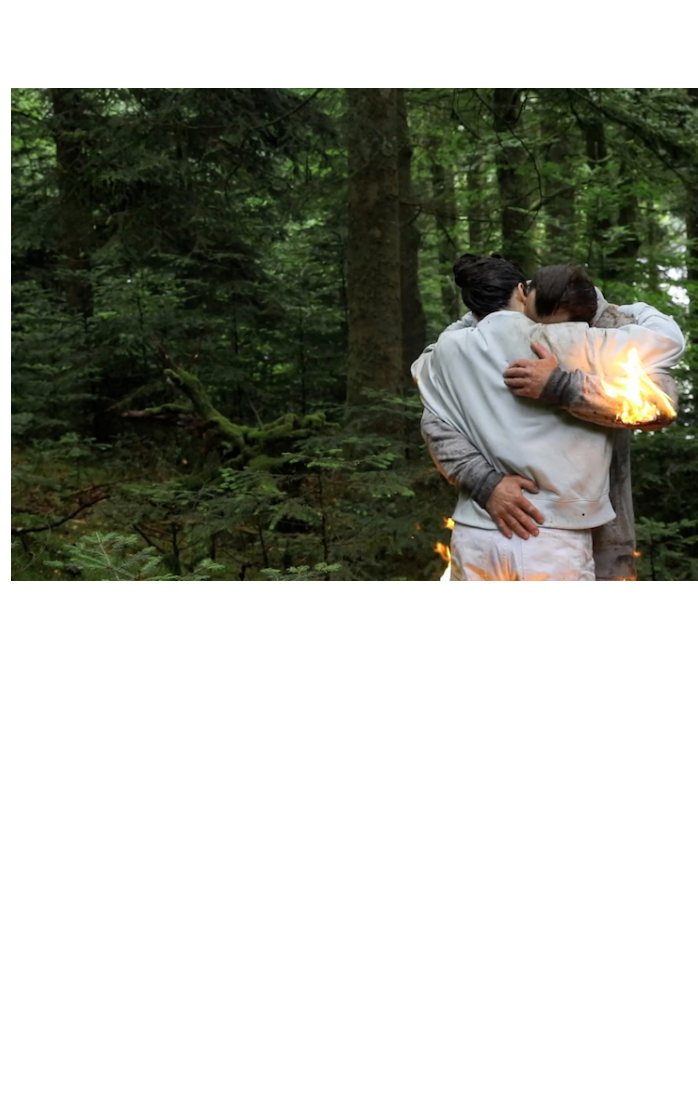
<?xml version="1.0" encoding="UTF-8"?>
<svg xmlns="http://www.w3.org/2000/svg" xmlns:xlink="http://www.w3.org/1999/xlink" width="698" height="1101">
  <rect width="100%" height="100%" fill="#ffffff" />
  <image x="11" y="88" width="687" height="493" xlink:href="image1.png" />
</svg>
